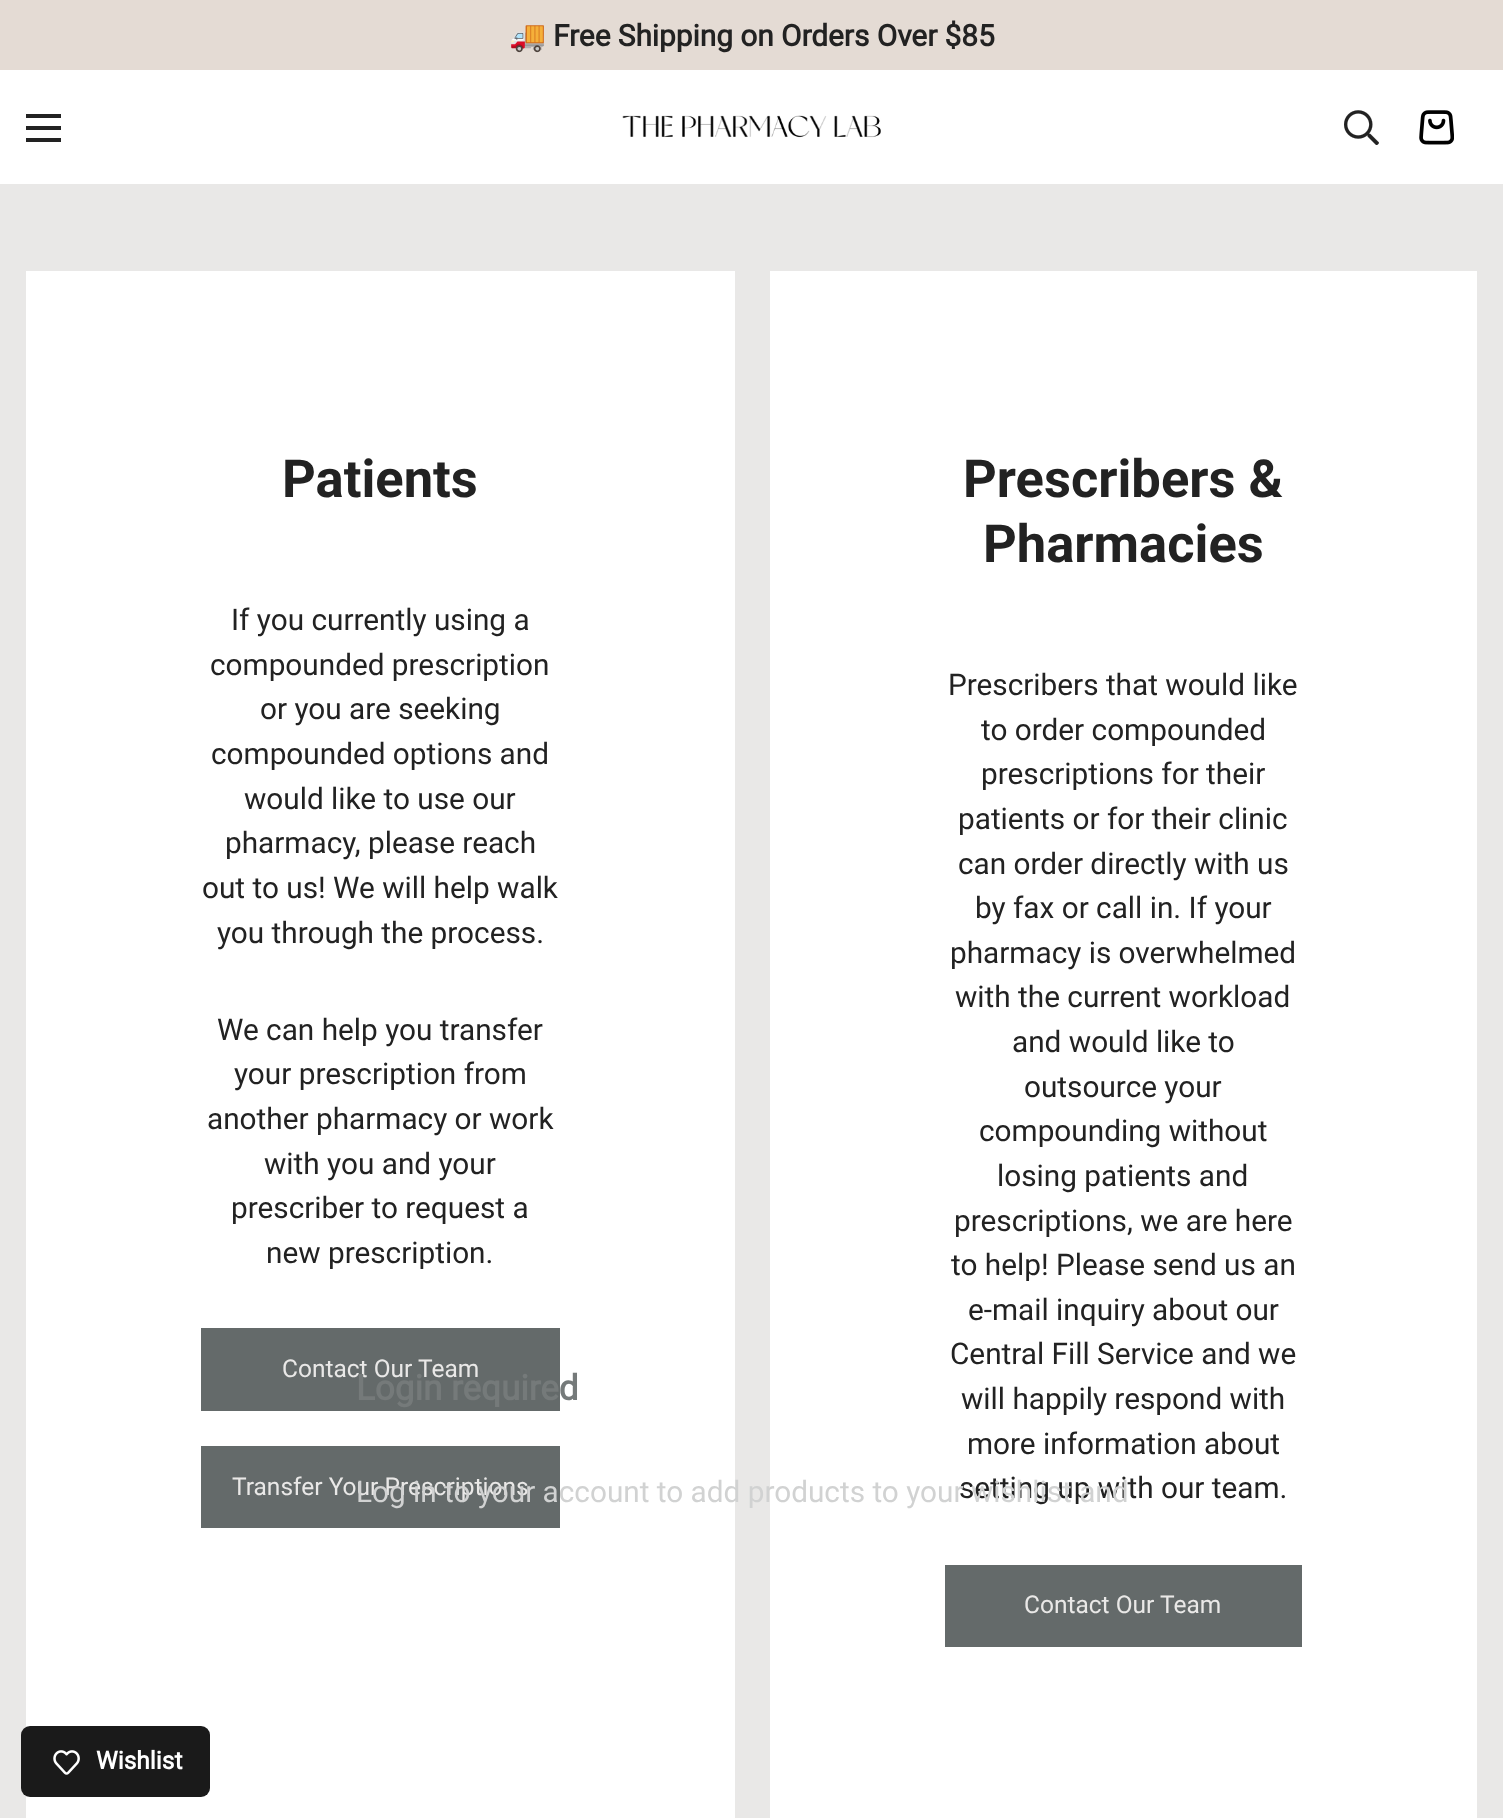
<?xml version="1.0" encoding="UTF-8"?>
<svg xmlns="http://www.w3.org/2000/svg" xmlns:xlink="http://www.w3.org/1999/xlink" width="1503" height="1818">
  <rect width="100%" height="100%" fill="#ffffff" />
  <rect width="1503" height="70" fill="#e4dbd4" />
  <rect x="26" y="126" width="35" height="4" fill="#222222" />
  <rect x="26" y="114" width="35" height="4" fill="#222222" />
  <rect x="26" y="138" width="35" height="4" fill="#222222" />
  <image x="622" y="115" width="259" height="23" xlink:href="image1.png" />
  <image x="1344" y="110" width="35" height="35" xlink:href="image2.png" />
  <image x="1419" y="110" width="35" height="35" xlink:href="image3.png" />
  <rect y="184" width="1503" height="1634" fill="#e9e8e7" />
  <rect x="26" y="271" width="709" height="1547" fill="#ffffff" />
  <rect x="201" y="1328" width="359" height="83" fill="#646a6a" />
  <rect x="201" y="1446" width="359" height="82" fill="#646a6a" />
  <rect x="770" y="271" width="707" height="1547" fill="#ffffff" />
  <rect x="945" y="1565" width="357" height="82" fill="#646a6a" />
  <rect x="21" y="1726" width="189" height="71" rx="9" fill="#1a1a1a" />
  <image x="53" y="1750" width="27" height="25" xlink:href="image4.png" />
  <text x="509" y="46" style="font-family: Noto Color Emoji; font-size: 29.75px; font-weight: bold; fill: #222222">🚚</text>
  <text x="553" y="46" style="font-family: 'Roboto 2'; font-size: 29.75px; font-weight: bold; fill: #222222">Free Shipping on Orders Over $85</text>
  <text x="282" y="497" style="font-family: Roboto; font-size: 52.5px; font-weight: bold; fill: #222222">Patients</text>
  <text x="231" y="630" style="font-family: Roboto; font-size: 29.75px; fill: #222222">If you currently using a</text>
  <text x="210" y="675" style="font-family: Roboto; font-size: 29.75px; fill: #222222">compounded prescription</text>
  <text x="260" y="719" style="font-family: Roboto; font-size: 29.75px; fill: #222222">or you are seeking</text>
  <text x="211" y="764" style="font-family: Roboto; font-size: 29.75px; fill: #222222">compounded options and</text>
  <text x="244" y="809" style="font-family: Roboto; font-size: 29.75px; fill: #222222">would like to use our</text>
  <text x="225" y="853" style="font-family: Roboto; font-size: 29.75px; fill: #222222">pharmacy, please reach</text>
  <text x="202" y="898" style="font-family: Roboto; font-size: 29.75px; fill: #222222">out to us! We will help walk</text>
  <text x="217" y="943" style="font-family: Roboto; font-size: 29.75px; fill: #222222">you through the process.</text>
  <text x="217" y="1040" style="font-family: Roboto; font-size: 29.75px; fill: #222222">We can help you transfer</text>
  <text x="234" y="1084" style="font-family: Roboto; font-size: 29.75px; fill: #222222">your prescription from</text>
  <text x="207" y="1129" style="font-family: Roboto; font-size: 29.75px; fill: #222222">another pharmacy or work</text>
  <text x="264" y="1174" style="font-family: Roboto; font-size: 29.75px; fill: #222222">with you and your</text>
  <text x="231" y="1218" style="font-family: Roboto; font-size: 29.75px; fill: #222222">prescriber to request a</text>
  <text x="266" y="1263" style="font-family: Roboto; font-size: 29.75px; fill: #222222">new prescription.</text>
  <text x="282" y="1377" style="font-family: Roboto; font-size: 24.5px; fill: #e9e8e7">Contact Our Team</text>
  <text x="232" y="1495" style="font-family: Roboto; font-size: 24.5px; fill: #e9e8e7">Transfer Your Prescriptions</text>
  <text x="963" y="497" style="font-family: Roboto; font-size: 52.5px; font-weight: bold; fill: #222222">Prescribers &amp;</text>
  <text x="983" y="562" style="font-family: Roboto; font-size: 52.5px; font-weight: bold; fill: #222222">Pharmacies</text>
  <text x="948" y="695" style="font-family: Roboto; font-size: 29.75px; fill: #222222">Prescribers that would like</text>
  <text x="981" y="740" style="font-family: Roboto; font-size: 29.75px; fill: #222222">to order compounded</text>
  <text x="981" y="784" style="font-family: Roboto; font-size: 29.75px; fill: #222222">prescriptions for their</text>
  <text x="958" y="829" style="font-family: Roboto; font-size: 29.75px; fill: #222222">patients or for their clinic</text>
  <text x="958" y="874" style="font-family: Roboto; font-size: 29.75px; fill: #222222">can order directly with us</text>
  <text x="975" y="918" style="font-family: Roboto; font-size: 29.75px; fill: #222222">by fax or call in. If your</text>
  <text x="950" y="963" style="font-family: Roboto; font-size: 29.75px; fill: #222222">pharmacy is overwhelmed</text>
  <text x="955" y="1007" style="font-family: Roboto; font-size: 29.75px; fill: #222222">with the current workload</text>
  <text x="1012" y="1052" style="font-family: Roboto; font-size: 29.75px; fill: #222222">and would like to</text>
  <text x="1024" y="1097" style="font-family: Roboto; font-size: 29.75px; fill: #222222">outsource your</text>
  <text x="979" y="1141" style="font-family: Roboto; font-size: 29.75px; fill: #222222">compounding without</text>
  <text x="997" y="1186" style="font-family: Roboto; font-size: 29.75px; fill: #222222">losing patients and</text>
  <text x="954" y="1231" style="font-family: Roboto; font-size: 29.75px; fill: #222222">prescriptions, we are here</text>
  <text x="951" y="1275" style="font-family: Roboto; font-size: 29.75px; fill: #222222">to help! Please send us an</text>
  <text x="968" y="1320" style="font-family: Roboto; font-size: 29.75px; fill: #222222">e-mail inquiry about our</text>
  <text x="950" y="1364" style="font-family: Roboto; font-size: 29.75px; fill: #222222">Central Fill Service and we</text>
  <text x="961" y="1409" style="font-family: Roboto; font-size: 29.75px; fill: #222222">will happily respond with</text>
  <text x="967" y="1454" style="font-family: Roboto; font-size: 29.75px; fill: #222222">more information about</text>
  <text x="959" y="1498" style="font-family: Roboto; font-size: 29.75px; fill: #222222">setting up with our team.</text>
  <text x="1024" y="1613" style="font-family: Roboto; font-size: 24.5px; fill: #e9e8e7">Contact Our Team</text>
  <text x="356" y="1400" style="font-family: 'Roboto 2'; font-size: 35px; font-weight: bold; fill: #757a7a">Login required</text>
  <text x="356" y="1502" style="font-family: Roboto; font-size: 29.75px; fill: #d1d2d2">Log in to your account to add products to your wishlist and</text>
  <text x="96" y="1769" style="font-family: 'Roboto 2'; font-size: 24.5px; font-weight: bold; fill: #ffffff">Wishlist</text>
</svg>
